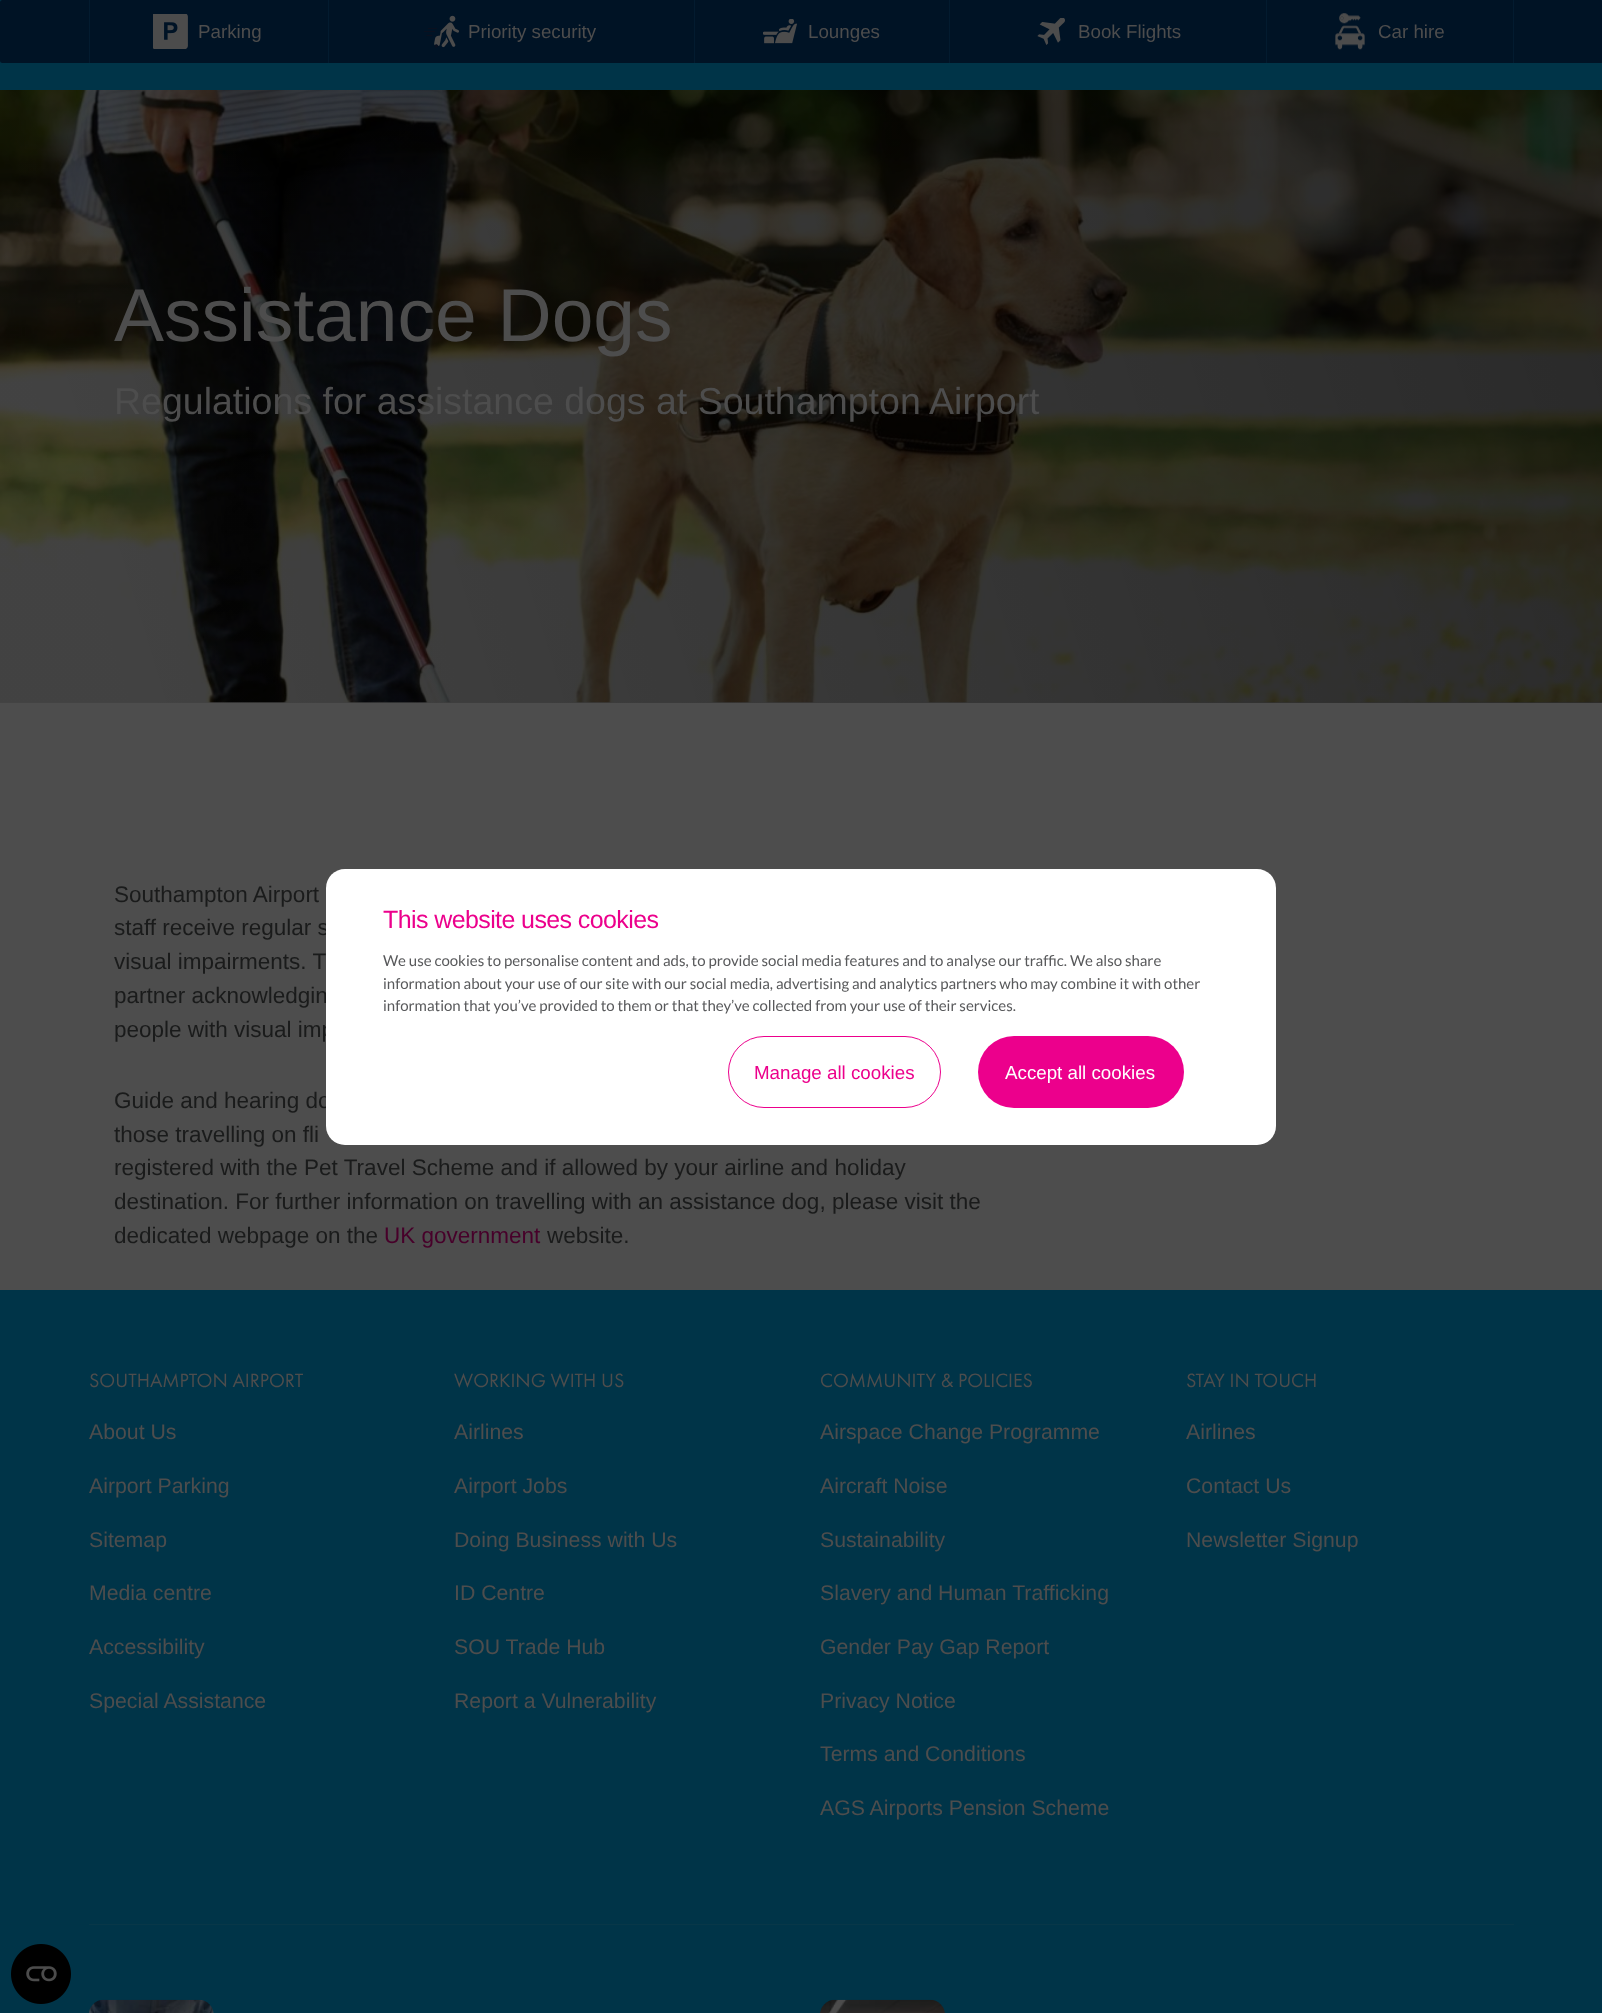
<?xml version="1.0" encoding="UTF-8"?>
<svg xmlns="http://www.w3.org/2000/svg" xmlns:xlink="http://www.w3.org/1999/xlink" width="1602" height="2013">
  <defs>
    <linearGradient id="g1" gradientUnits="userSpaceOnUse" x1="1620" y1="146" x2="-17" y2="646"><stop offset="0" stop-color="#000000" stop-opacity="0.46" /><stop offset="0.93" stop-color="#000000" stop-opacity="0.13" /></linearGradient>
  </defs>
  <rect width="100%" height="100%" fill="#4d4d4d" />
  <rect width="1602" height="90" fill="#003448" />
  <rect width="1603" height="63" rx="2.5" fill="#001325" />
  <rect x="89" width="1" height="63" fill="#031b2f" />
  <image x="153" y="14" width="35" height="35" xlink:href="image1.png" />
  <rect x="328" width="1" height="63" fill="#031b2f" />
  <image x="424" y="15" width="35" height="33" xlink:href="image2.png" />
  <rect x="694" width="1" height="63" fill="#031b2f" />
  <image x="763" y="19" width="34" height="25" xlink:href="image3.png" />
  <rect x="949" width="1" height="63" fill="#031b2f" />
  <image x="1037" y="18" width="28" height="27" xlink:href="image4.png" />
  <rect x="1513" width="1" height="63" fill="#031b2f" />
  <rect x="1266" width="1" height="63" fill="#031b2f" />
  <image x="1335" y="13" width="30" height="37" xlink:href="image5.png" />
  <image x="0" y="90" width="1602" height="613" xlink:href="image6.png" />
  <rect y="90" width="1602" height="613" fill="url(#g1)" />
  <rect y="1290" width="1602" height="723" fill="#003448" />
  <rect x="89" y="1924" width="1425" height="1" fill="#083748" />
  <image x="89" y="1999" width="125" height="14" xlink:href="image7.png" />
  <image x="820" y="1999" width="125" height="14" xlink:href="image8.png" />
  <image x="11" y="1944" width="60" height="60" xlink:href="image9.png" />
  <text x="198" y="38" style="font-family: Liberation Sans; font-size: 18.75px; fill: #4d4d4d">Parking</text>
  <text x="468" y="38" style="font-family: Liberation Sans; font-size: 18.75px; fill: #4d4d4d">Priority security</text>
  <text x="808" y="38" style="font-family: Liberation Sans; font-size: 18.75px; fill: #4d4d4d">Lounges</text>
  <text x="1078" y="38" style="font-family: Liberation Sans; font-size: 18.75px; fill: #4d4d4d">Book Flights</text>
  <text x="1378" y="38" style="font-family: Liberation Sans; font-size: 18.75px; fill: #4d4d4d">Car hire</text>
  <text x="114" y="341" style="font-family: Liberation Sans; font-size: 75px; fill: #4d4d4d">Assistance Dogs</text>
  <text x="114" y="414" style="font-family: Liberation Sans; font-size: 37.5px; fill: #4d4d4d">Regulations for assistance dogs at Southampton Airport</text>
  <text x="114" y="902" style="font-family: Liberation Sans; font-size: 22.5px; fill: #1a1b1b">Southampton Airport</text>
  <text x="114" y="935" style="font-family: Liberation Sans; font-size: 22.5px; fill: #1a1b1b">staff receive regular s</text>
  <text x="114" y="969" style="font-family: Liberation Sans; font-size: 22.5px; fill: #1a1b1b">visual impairments. T</text>
  <text x="114" y="1003" style="font-family: Liberation Sans; font-size: 22.5px; fill: #1a1b1b">partner acknowledgin</text>
  <text x="114" y="1037" style="font-family: Liberation Sans; font-size: 22.5px; fill: #1a1b1b">people with visual imp</text>
  <text x="114" y="1108" style="font-family: Liberation Sans; font-size: 22.5px; fill: #1a1b1b">Guide and hearing do</text>
  <text x="114" y="1142" style="font-family: Liberation Sans; font-size: 22.5px; fill: #1a1b1b">those travelling on fli</text>
  <text x="114" y="1175" style="font-family: Liberation Sans; font-size: 22.5px; fill: #1a1b1b">registered with the Pet Travel Scheme and if allowed by your airline and holiday</text>
  <text x="114" y="1209" style="font-family: Liberation Sans; font-size: 22.5px; fill: #1a1b1b">destination. For further information on travelling with an assistance dog, please visit the</text>
  <text x="114" y="1243" style="font-family: Liberation Sans; font-size: 22.5px; fill: #1a1b1b">dedicated webpage on the</text>
  <text x="384" y="1243" style="font-family: Liberation Sans; font-size: 22.5px; fill: #47002a">UK government</text>
  <text x="547" y="1243" style="font-family: Liberation Sans; font-size: 22.5px; fill: #1a1b1b">website.</text>
  <text x="89" y="1387" style="font-family: Futura PT; font-size: 20px; fill: #4d4d4d">SOUTHAMPTON AIRPORT</text>
  <text x="89" y="1439" style="font-family: Liberation Sans; font-size: 21.25px; fill: #4d4d4d">About Us</text>
  <text x="89" y="1493" style="font-family: Liberation Sans; font-size: 21.25px; fill: #4d4d4d">Airport Parking</text>
  <text x="89" y="1547" style="font-family: Liberation Sans; font-size: 21.25px; fill: #4d4d4d">Sitemap</text>
  <text x="89" y="1600" style="font-family: Liberation Sans; font-size: 21.25px; fill: #4d4d4d">Media centre</text>
  <text x="89" y="1654" style="font-family: Liberation Sans; font-size: 21.25px; fill: #4d4d4d">Accessibility</text>
  <text x="89" y="1708" style="font-family: Liberation Sans; font-size: 21.25px; fill: #4d4d4d">Special Assistance</text>
  <text x="454" y="1387" style="font-family: Futura PT; font-size: 20px; fill: #4d4d4d">WORKING WITH US</text>
  <text x="454" y="1439" style="font-family: Liberation Sans; font-size: 21.25px; fill: #4d4d4d">Airlines</text>
  <text x="454" y="1493" style="font-family: Liberation Sans; font-size: 21.25px; fill: #4d4d4d">Airport Jobs</text>
  <text x="454" y="1547" style="font-family: Liberation Sans; font-size: 21.25px; fill: #4d4d4d">Doing Business with Us</text>
  <text x="454" y="1600" style="font-family: Liberation Sans; font-size: 21.25px; fill: #4d4d4d">ID Centre</text>
  <text x="454" y="1654" style="font-family: Liberation Sans; font-size: 21.25px; fill: #4d4d4d">SOU Trade Hub</text>
  <text x="454" y="1708" style="font-family: Liberation Sans; font-size: 21.25px; fill: #4d4d4d">Report a Vulnerability</text>
  <text x="820" y="1387" style="font-family: Futura PT; font-size: 20px; fill: #4d4d4d">COMMUNITY &amp; POLICIES</text>
  <text x="820" y="1439" style="font-family: Liberation Sans; font-size: 21.25px; fill: #4d4d4d">Airspace Change Programme</text>
  <text x="820" y="1493" style="font-family: Liberation Sans; font-size: 21.25px; fill: #4d4d4d">Aircraft Noise</text>
  <text x="820" y="1547" style="font-family: Liberation Sans; font-size: 21.25px; fill: #4d4d4d">Sustainability</text>
  <text x="820" y="1600" style="font-family: Liberation Sans; font-size: 21.25px; fill: #4d4d4d">Slavery and Human Trafficking</text>
  <text x="820" y="1654" style="font-family: Liberation Sans; font-size: 21.25px; fill: #4d4d4d">Gender Pay Gap Report</text>
  <text x="820" y="1708" style="font-family: Liberation Sans; font-size: 21.25px; fill: #4d4d4d">Privacy Notice</text>
  <text x="820" y="1761" style="font-family: Liberation Sans; font-size: 21.25px; fill: #4d4d4d">Terms and Conditions</text>
  <text x="820" y="1815" style="font-family: Liberation Sans; font-size: 21.25px; fill: #4d4d4d">AGS Airports Pension Scheme</text>
  <text x="1186" y="1387" style="font-family: Futura PT; font-size: 20px; fill: #4d4d4d">STAY IN TOUCH</text>
  <text x="1186" y="1439" style="font-family: Liberation Sans; font-size: 21.25px; fill: #4d4d4d">Airlines</text>
  <text x="1186" y="1493" style="font-family: Liberation Sans; font-size: 21.25px; fill: #4d4d4d">Contact Us</text>
  <text x="1186" y="1547" style="font-family: Liberation Sans; font-size: 21.25px; fill: #4d4d4d">Newsletter Signup</text>
  <rect x="326" y="869" width="950" height="276" rx="19" fill="#ffffff" />
  <text x="383" y="928" style="font-family: Liberation Sans; font-size: 25px; letter-spacing: -0.6px; fill: #ec008c">This website uses cookies</text>
  <text x="383" y="966" style="font-family: Lato; font-size: 15px; fill: #58595b">We use cookies to personalise content and ads, to provide social media features and to analyse our traffic. We also share</text>
  <text x="383" y="989" style="font-family: Lato; font-size: 15px; fill: #58595b">information about your use of our site with our social media, advertising and analytics partners who may combine it with other</text>
  <text x="383" y="1011" style="font-family: Lato; font-size: 15px; fill: #58595b">information that you’ve provided to them or that they’ve collected from your use of their services.</text>
  <rect x="728.5" y="1036.5" width="212" height="71" rx="35.5" fill="none" stroke="#ec008c" />
  <text x="754" y="1079" style="font-family: Liberation Sans; font-size: 18.75px; fill: #ec008c">Manage all cookies</text>
  <rect x="978" y="1036" width="206" height="72" rx="36" fill="#ec008c" />
  <text x="1005" y="1079" style="font-family: Liberation Sans; font-size: 18.75px; fill: #ffffff">Accept all cookies</text>
</svg>
